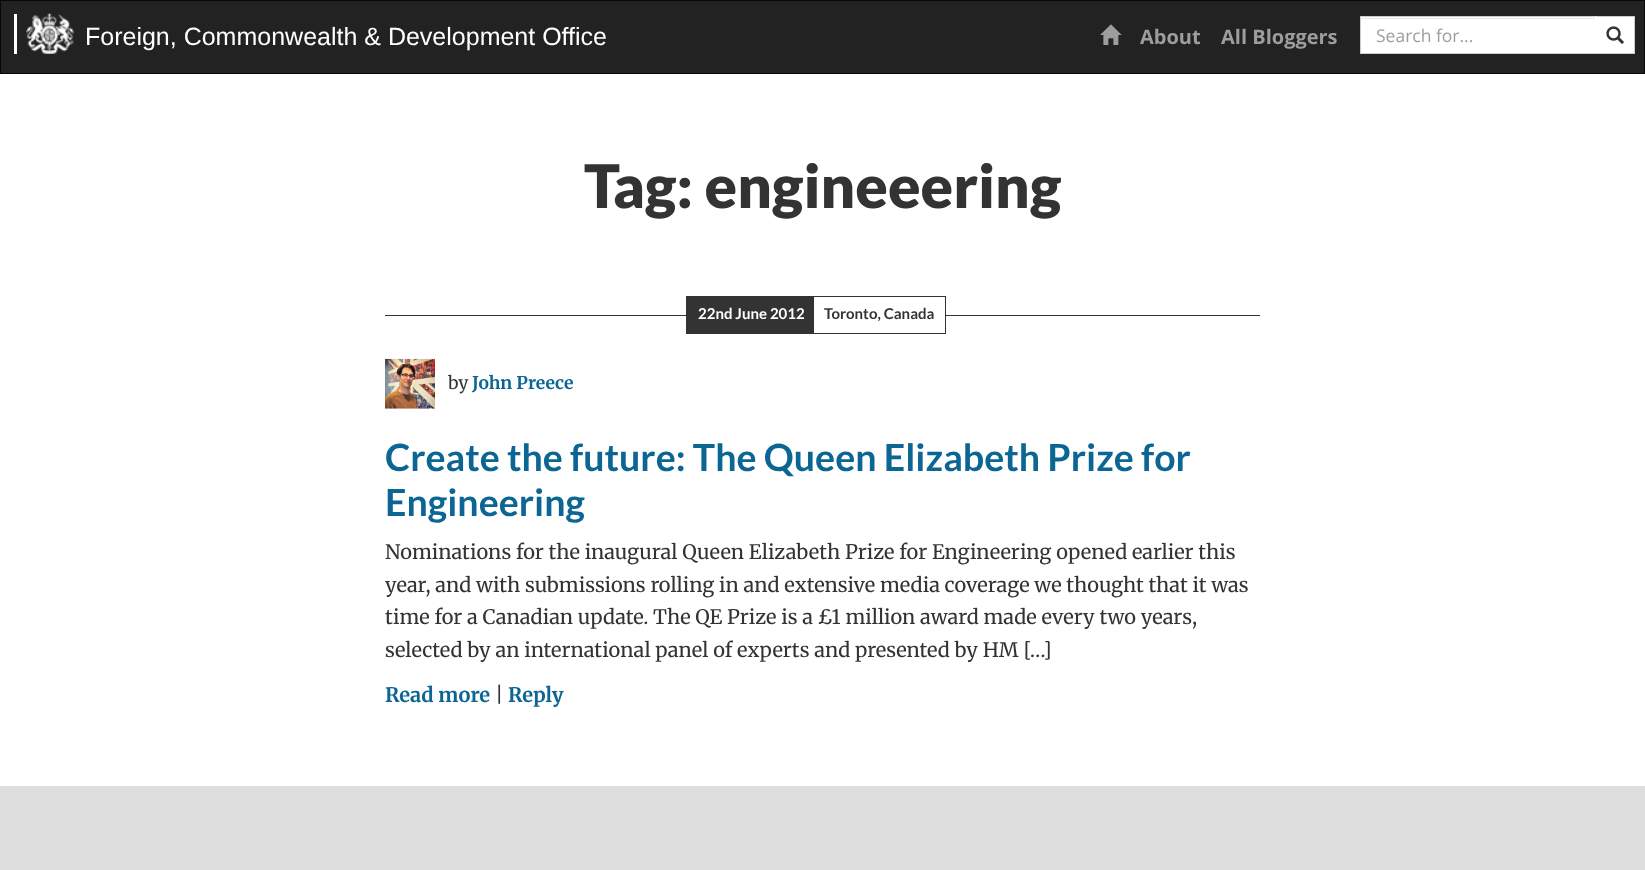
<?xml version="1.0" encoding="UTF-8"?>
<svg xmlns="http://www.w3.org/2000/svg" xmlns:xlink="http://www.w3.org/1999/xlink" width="1645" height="870">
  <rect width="100%" height="100%" fill="#dddddd" />
  <rect x="0.5" y="0.5" width="1644" height="73" fill="#222222" stroke="#080808" />
  <image x="26" y="13" width="48" height="41" xlink:href="image1.png" />
  <rect x="14" y="14" width="3" height="40" fill="#ffffff" />
  <image x="1100" y="24" width="22" height="21" xlink:href="image2.png" />
  <rect x="1361" y="17" width="234" height="36" fill="#ffffff" />
  <rect x="1361" y="18" width="234" height="1" fill="#ececec" />
  <rect x="1595.5" y="16.5" width="39" height="37" fill="#ffffff" stroke="#cccccc" />
  <rect x="1360" y="16" width="236" height="1" fill="#cccccc" />
  <rect x="1595" y="16" width="1" height="38" fill="#ffffff" />
  <rect x="1360" y="53" width="236" height="1" fill="#cccccc" />
  <rect x="1360" y="16" width="1" height="38" fill="#cccccc" />
  <image x="1606" y="26" width="18" height="18" xlink:href="image3.png" />
  <rect y="74" width="1645" height="712" fill="#ffffff" />
  <rect x="385" y="315" width="875" height="1" fill="#333333" />
  <rect x="686" y="296" width="127" height="38" fill="#333333" />
  <rect x="814" y="315" width="131" height="1" fill="#ffffff" />
  <rect x="813.5" y="296.5" width="132" height="37" fill="none" stroke="#333333" />
  <image x="385" y="358" width="50" height="51" xlink:href="image4.png" />
  <text x="85" y="45" style="font-family: Liberation Sans; font-size: 25px; fill: #ffffff">Foreign, Commonwealth &amp; Development Office</text>
  <text x="1140" y="44" style="font-family: Open Sans; font-size: 20px; font-weight: bold; fill: #9d9d9d">About</text>
  <text x="1221" y="44" style="font-family: Open Sans; font-size: 20px; font-weight: bold; fill: #9d9d9d">All Bloggers</text>
  <text x="1376" y="42" style="font-family: Open Sans; font-size: 17.5px; fill: #9d9d9d">Search for...</text>
  <text x="584" y="208" style="font-family: Lato; font-size: 60px; font-weight: 900; fill: #333333">Tag: engineeering</text>
  <text x="698" y="319" style="font-family: Lato; font-size: 15px; font-weight: bold; fill: #ffffff">22nd June 2012</text>
  <text x="824" y="319" style="font-family: Lato; font-size: 15px; font-weight: bold; fill: #333333">Toronto, Canada</text>
  <text x="448" y="389" style="font-family: Merriweather; font-size: 17.5px; fill: #333333">by</text>
  <text x="472" y="389" style="font-family: Merriweather; font-size: 17.5px; font-weight: bold; fill: #0c6694">John Preece</text>
  <text x="385" y="471" style="font-family: Lato; font-size: 37.5px; font-weight: bold; fill: #0c6694">Create the future: The Queen Elizabeth Prize for</text>
  <text x="385" y="516" style="font-family: Lato; font-size: 37.5px; font-weight: bold; fill: #0c6694">Engineering</text>
  <text x="385" y="559" style="font-family: Merriweather; font-size: 20px; fill: #333333">Nominations for the inaugural Queen Elizabeth Prize for Engineering opened earlier this</text>
  <text x="385" y="592" style="font-family: Merriweather; font-size: 20px; fill: #333333">year, and with submissions rolling in and extensive media coverage we thought that it was</text>
  <text x="385" y="624" style="font-family: Merriweather; font-size: 20px; fill: #333333">time for a Canadian update. The QE Prize is a £1 million award made every two years,</text>
  <text x="385" y="657" style="font-family: Merriweather; font-size: 20px; fill: #333333">selected by an international panel of experts and presented by HM […]</text>
  <text x="385" y="702" style="font-family: Merriweather; font-size: 20px; font-weight: bold; fill: #0c6694">Read more</text>
  <text x="495" y="702" style="font-family: Merriweather; font-size: 20px; fill: #333333">|</text>
  <text x="508" y="702" style="font-family: Merriweather; font-size: 20px; font-weight: bold; fill: #0c6694">Reply</text>
</svg>
